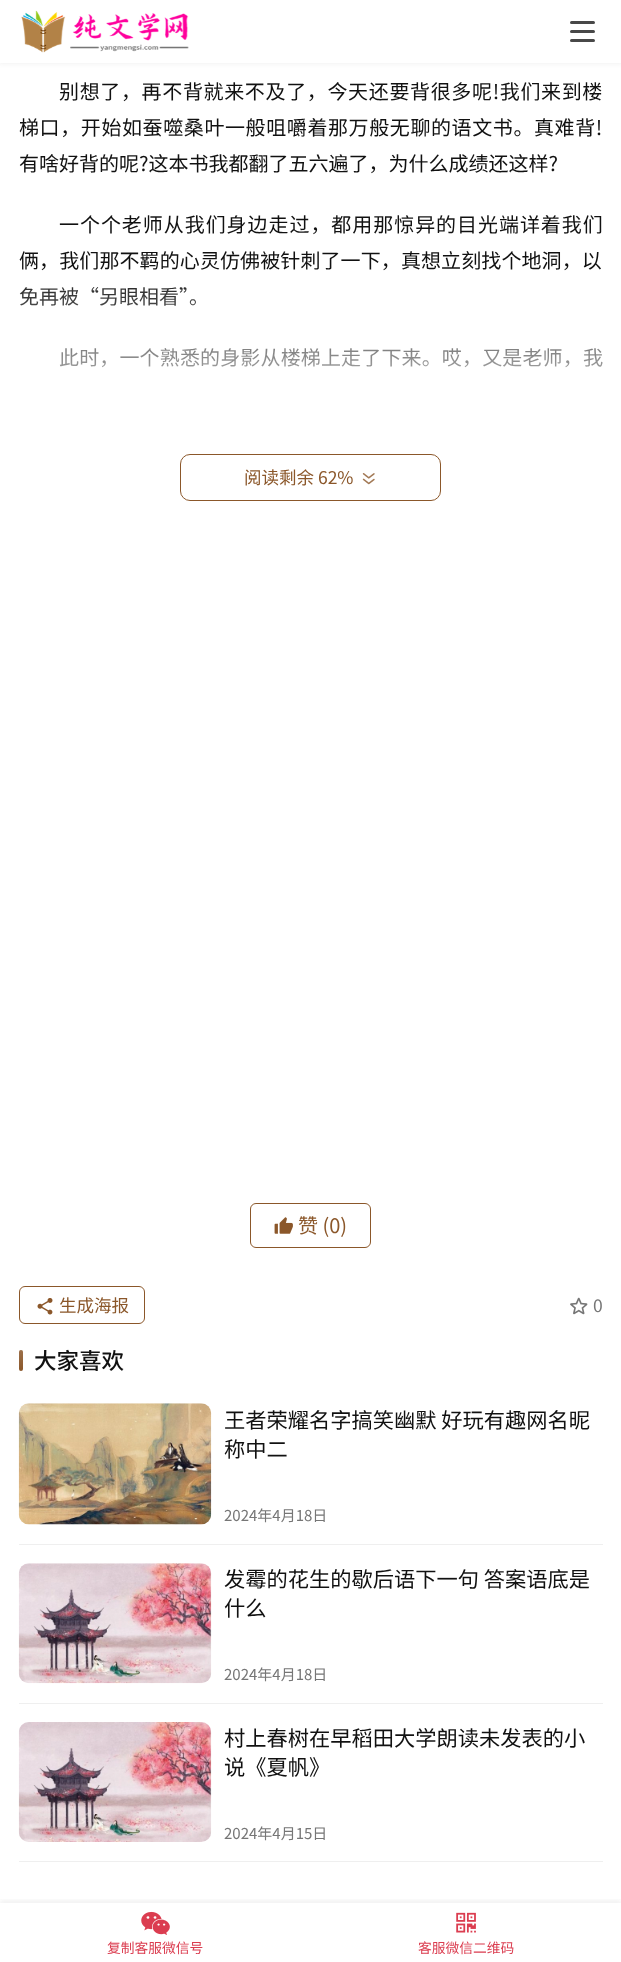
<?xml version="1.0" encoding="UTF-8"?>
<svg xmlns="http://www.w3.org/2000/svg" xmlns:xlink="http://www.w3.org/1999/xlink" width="621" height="1962">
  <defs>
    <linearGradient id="g1" gradientUnits="userSpaceOnUse" x1="21" y1="1350" x2="21" y2="1371"><stop offset="0" stop-color="#ffffff" stop-opacity="0.15" /><stop offset="1" stop-color="#ffffff" stop-opacity="0" /></linearGradient>
    <clipPath id="clip1"><rect x="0" y="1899" width="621" height="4" /></clipPath>
    <linearGradient id="g2" gradientUnits="userSpaceOnUse" x1="311" y1="266" x2="311" y2="526"><stop offset="0" stop-color="#ffffff" stop-opacity="0" /><stop offset="0.68" stop-color="#ffffff" /></linearGradient>
  </defs>
  <rect width="100%" height="100%" fill="#ffffff" />
  <rect x="-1" y="-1" width="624" height="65" fill="#1a1a1a" fill-opacity="0.06" filter="blur(2px)" />
  <rect width="621" height="63" fill="#ffffff" />
  <image x="21" y="10" width="168" height="43" xlink:href="image1.png" />
  <rect x="570" y="21" width="25" height="3" rx="1.5" fill="#484848" />
  <rect x="570" y="30" width="25" height="3" rx="1.5" fill="#484848" />
  <rect x="570" y="39" width="25" height="3" rx="1.5" fill="#484848" />
  <rect x="180.5" y="454.5" width="260" height="46" rx="9.5" fill="none" stroke="#8b572a" />
  <image x="362" y="473" width="13" height="12" xlink:href="image2.png" />
  <rect x="250.5" y="1203.5" width="120" height="44" rx="5.5" fill="none" stroke="#8b572a" />
  <image x="274" y="1217" width="19" height="17" xlink:href="image3.png" />
  <rect x="19.5" y="1286.5" width="125" height="37" rx="5.5" fill="none" stroke="#8b572a" />
  <image x="37" y="1298" width="16" height="17" xlink:href="image4.png" />
  <image x="570" y="1297" width="18" height="18" xlink:href="image5.png" />
  <rect x="19" y="1350" width="4" height="21" rx="2" fill="#8b572a" />
  <rect x="19" y="1350" width="4" height="21" rx="2" fill="url(#g1)" />
  <rect x="19" y="1544" width="584" height="1" fill="#efefef" />
  <image x="18" y="1403" width="194" height="122" xlink:href="image6.png" />
  <rect x="19" y="1703" width="584" height="1" fill="#efefef" />
  <image x="18" y="1563" width="194" height="121" xlink:href="image7.png" />
  <rect x="19" y="1861" width="584" height="1" fill="#efefef" />
  <image x="18" y="1722" width="194" height="120" xlink:href="image8.png" />
  <g clip-path="url(#clip1)">
    <rect y="1900" width="621" height="60" fill="#1a1a1a" fill-opacity="0.06" filter="blur(2px)" />
  </g>
  <image x="141" y="1911" width="29" height="24" xlink:href="image9.png" />
  <image x="456" y="1912" width="20" height="21" xlink:href="image10.png" />
  <text x="59" y="99" style="font-family: Noto Sans CJK SC; font-size: 20px; letter-spacing: 0.65px; fill: #111111">别想了，再不背就来不及了，今天还要背很多呢!我们来到楼</text>
  <text x="19" y="135" style="font-family: Noto Sans CJK SC; font-size: 20px; letter-spacing: 0.6px; fill: #111111">梯口，开始如蚕噬桑叶一般咀嚼着那万般无聊的语文书。真难背!</text>
  <text x="19" y="171" style="font-family: Noto Sans CJK SC; font-size: 20px; fill: #111111">有啥好背的呢?这本书我都翻了五六遍了，为什么成绩还这样?</text>
  <text x="59" y="232" style="font-family: Noto Sans CJK SC; font-size: 20px; letter-spacing: 0.95px; fill: #111111">一个个老师从我们身边走过，都用那惊异的目光端详着我们</text>
  <text x="19" y="268" style="font-family: Noto Sans CJK SC; font-size: 20px; letter-spacing: 0.1px; fill: #111111">俩，我们那不羁的心灵仿佛被针刺了一下，真想立刻找个地洞，以</text>
  <text x="19" y="304" style="font-family: Noto Sans CJK SC; font-size: 20px; fill: #111111">免再被“另眼相看”。</text>
  <text x="59" y="365" style="font-family: Noto Sans CJK SC; font-size: 20px; letter-spacing: 0.15px; fill: #111111">此时，一个熟悉的身影从楼梯上走了下来。哎，又是老师，我</text>
  <rect x="19" y="287" width="583" height="81" fill="url(#g2)" />
  <text x="244" y="484" style="font-family: Noto Sans CJK SC; font-size: 17.5px; fill: #8b572a">阅读剩余 62%</text>
  <text x="298" y="1233" style="font-family: Noto Sans CJK SC; font-size: 20px; fill: #8b572a">赞 (0)</text>
  <text x="59" y="1312" style="font-family: Noto Sans CJK SC; font-size: 17.5px; fill: #8b572a">生成海报</text>
  <text x="593" y="1312" style="font-family: Noto Sans CJK SC; font-size: 17.5px; fill: #767676">0</text>
  <text x="34" y="1369" style="font-family: Noto Sans CJK SC; font-size: 22.5px; font-weight: 500; fill: #111111">大家喜欢</text>
  <text x="224" y="1428" style="font-family: Noto Sans CJK SC; font-size: 21.25px; fill: #111111">王者荣耀名字搞笑幽默 好玩有趣网名昵</text>
  <text x="224" y="1457" style="font-family: Noto Sans CJK SC; font-size: 21.25px; fill: #111111">称中二</text>
  <text x="224" y="1521" style="font-family: Noto Sans CJK SC; font-size: 15px; fill: #767676">2024年4月18日</text>
  <text x="224" y="1587" style="font-family: Noto Sans CJK SC; font-size: 21.25px; fill: #111111">发霉的花生的歇后语下一句 答案语底是</text>
  <text x="224" y="1616" style="font-family: Noto Sans CJK SC; font-size: 21.25px; fill: #111111">什么</text>
  <text x="224" y="1680" style="font-family: Noto Sans CJK SC; font-size: 15px; fill: #767676">2024年4月18日</text>
  <text x="224" y="1746" style="font-family: Noto Sans CJK SC; font-size: 21.25px; fill: #111111">村上春树在早稻田大学朗读未发表的小</text>
  <text x="224" y="1775" style="font-family: Noto Sans CJK SC; font-size: 21.25px; fill: #111111">说《夏帆》</text>
  <text x="224" y="1839" style="font-family: Noto Sans CJK SC; font-size: 15px; fill: #767676">2024年4月15日</text>
  <text x="107" y="1953" style="font-family: Noto Sans CJK SC; font-size: 13.75px; fill: #db3c4f">复制客服微信号</text>
  <text x="418" y="1953" style="font-family: Noto Sans CJK SC; font-size: 13.75px; fill: #db3c4f">客服微信二维码</text>
</svg>
